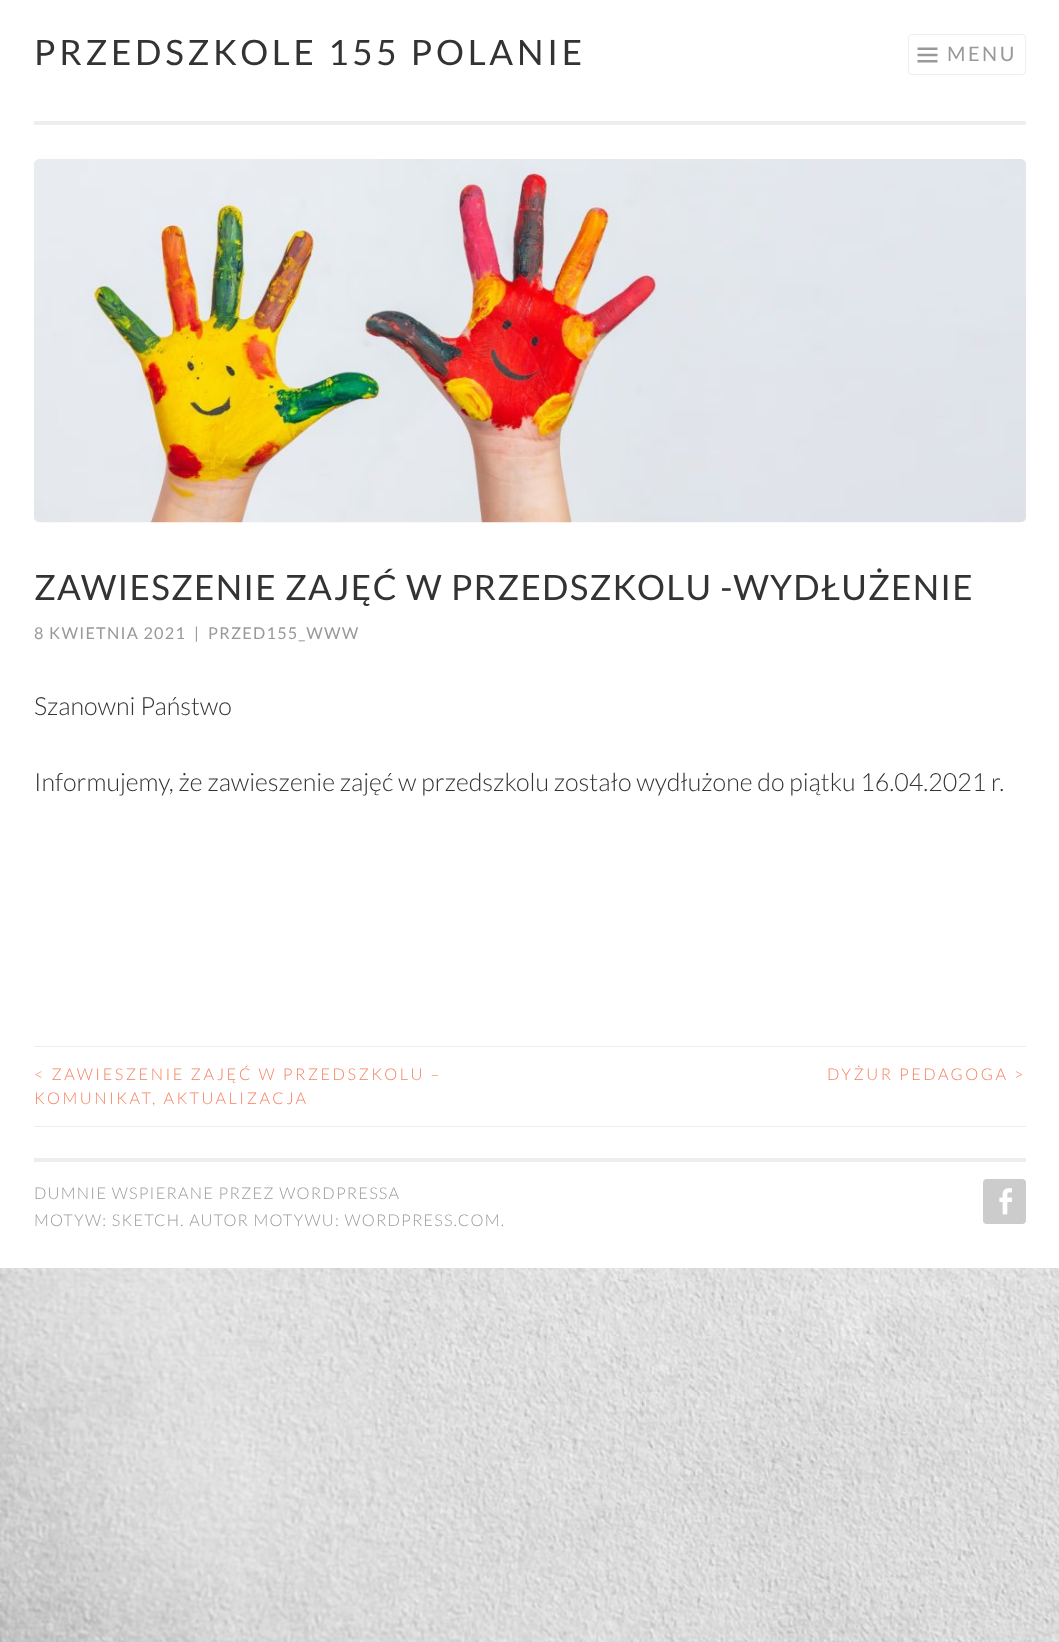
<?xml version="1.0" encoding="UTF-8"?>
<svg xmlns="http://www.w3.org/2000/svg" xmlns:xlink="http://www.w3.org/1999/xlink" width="1059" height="1642">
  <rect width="100%" height="100%" fill="#ffffff" />
  <image x="0" y="1268" width="1059" height="374" xlink:href="image1.png" />
  <rect x="34" y="121" width="992" height="4" fill="#eeeeee" />
  <rect x="908.5" y="34.5" width="117" height="40" rx="3.5" fill="none" stroke="#eeeeee" />
  <image x="917" y="47" width="21" height="16" xlink:href="image2.png" />
  <image x="34" y="159" width="992" height="364" xlink:href="image3.png" />
  <rect x="34" y="1046" width="992" height="1" fill="#eeeeee" />
  <rect x="34" y="1126" width="992" height="1" fill="#eeeeee" />
  <rect x="34" y="1158" width="992" height="4" fill="#eeeeee" />
  <rect x="983" y="1179" width="43" height="45" rx="4" fill="#cccccc" />
  <image x="999" y="1188" width="14" height="27" xlink:href="image4.png" />
  <text x="34" y="65" style="font-family: Lato; font-size: 35px; letter-spacing: 3.75px; fill: #333333">PRZEDSZKOLE 155 POLANIE</text>
  <text x="947" y="61" style="font-family: Lato; font-size: 20px; letter-spacing: 2.5px; fill: #999999">MENU</text>
  <text x="34" y="600" style="font-family: Lato; font-size: 35px; letter-spacing: 1.25px; fill: #333333">ZAWIESZENIE ZAJĘĆ W PRZEDSZKOLU -WYDŁUŻENIE</text>
  <text x="34" y="639" style="font-family: Lato; font-size: 16.25px; letter-spacing: 1.25px; fill: #999999">8 KWIETNIA 2021</text>
  <text x="194" y="639" style="font-family: Lato; font-size: 16.25px; letter-spacing: 1.25px; fill: #999999">|</text>
  <text x="208" y="639" style="font-family: Lato; font-size: 16.25px; letter-spacing: 1.25px; fill: #999999">PRZED155_WWW</text>
  <text x="34" y="715" style="font-family: Lato; font-size: 25px; font-weight: 300; fill: #333333">Szanowni Państwo</text>
  <text x="34" y="791" style="font-family: Lato; font-size: 25px; font-weight: 300; fill: #333333">Informujemy, że zawieszenie zajęć w przedszkolu zostało wydłużone do piątku 16.04.2021 r.</text>
  <text x="34" y="1080" style="font-family: Lato; font-size: 16.25px; font-weight: 300; letter-spacing: 2.5px; fill: #f68060">&lt; ZAWIESZENIE ZAJĘĆ W PRZEDSZKOLU –</text>
  <text x="34" y="1104" style="font-family: Lato; font-size: 16.25px; font-weight: 300; letter-spacing: 2.5px; fill: #f68060">KOMUNIKAT, AKTUALIZACJA</text>
  <text x="827" y="1080" style="font-family: Lato; font-size: 16.25px; font-weight: 300; letter-spacing: 2.5px; fill: #f68060">DYŻUR PEDAGOGA &gt;</text>
  <text x="34" y="1199" style="font-family: Lato; font-size: 16.25px; font-weight: 300; letter-spacing: 1.25px; fill: #999999">DUMNIE WSPIERANE PRZEZ WORDPRESSA</text>
  <text x="34" y="1226" style="font-family: Lato; font-size: 16.25px; font-weight: 300; letter-spacing: 1.25px; fill: #999999">MOTYW: SKETCH. AUTOR MOTYWU: WORDPRESS.COM.</text>
</svg>
